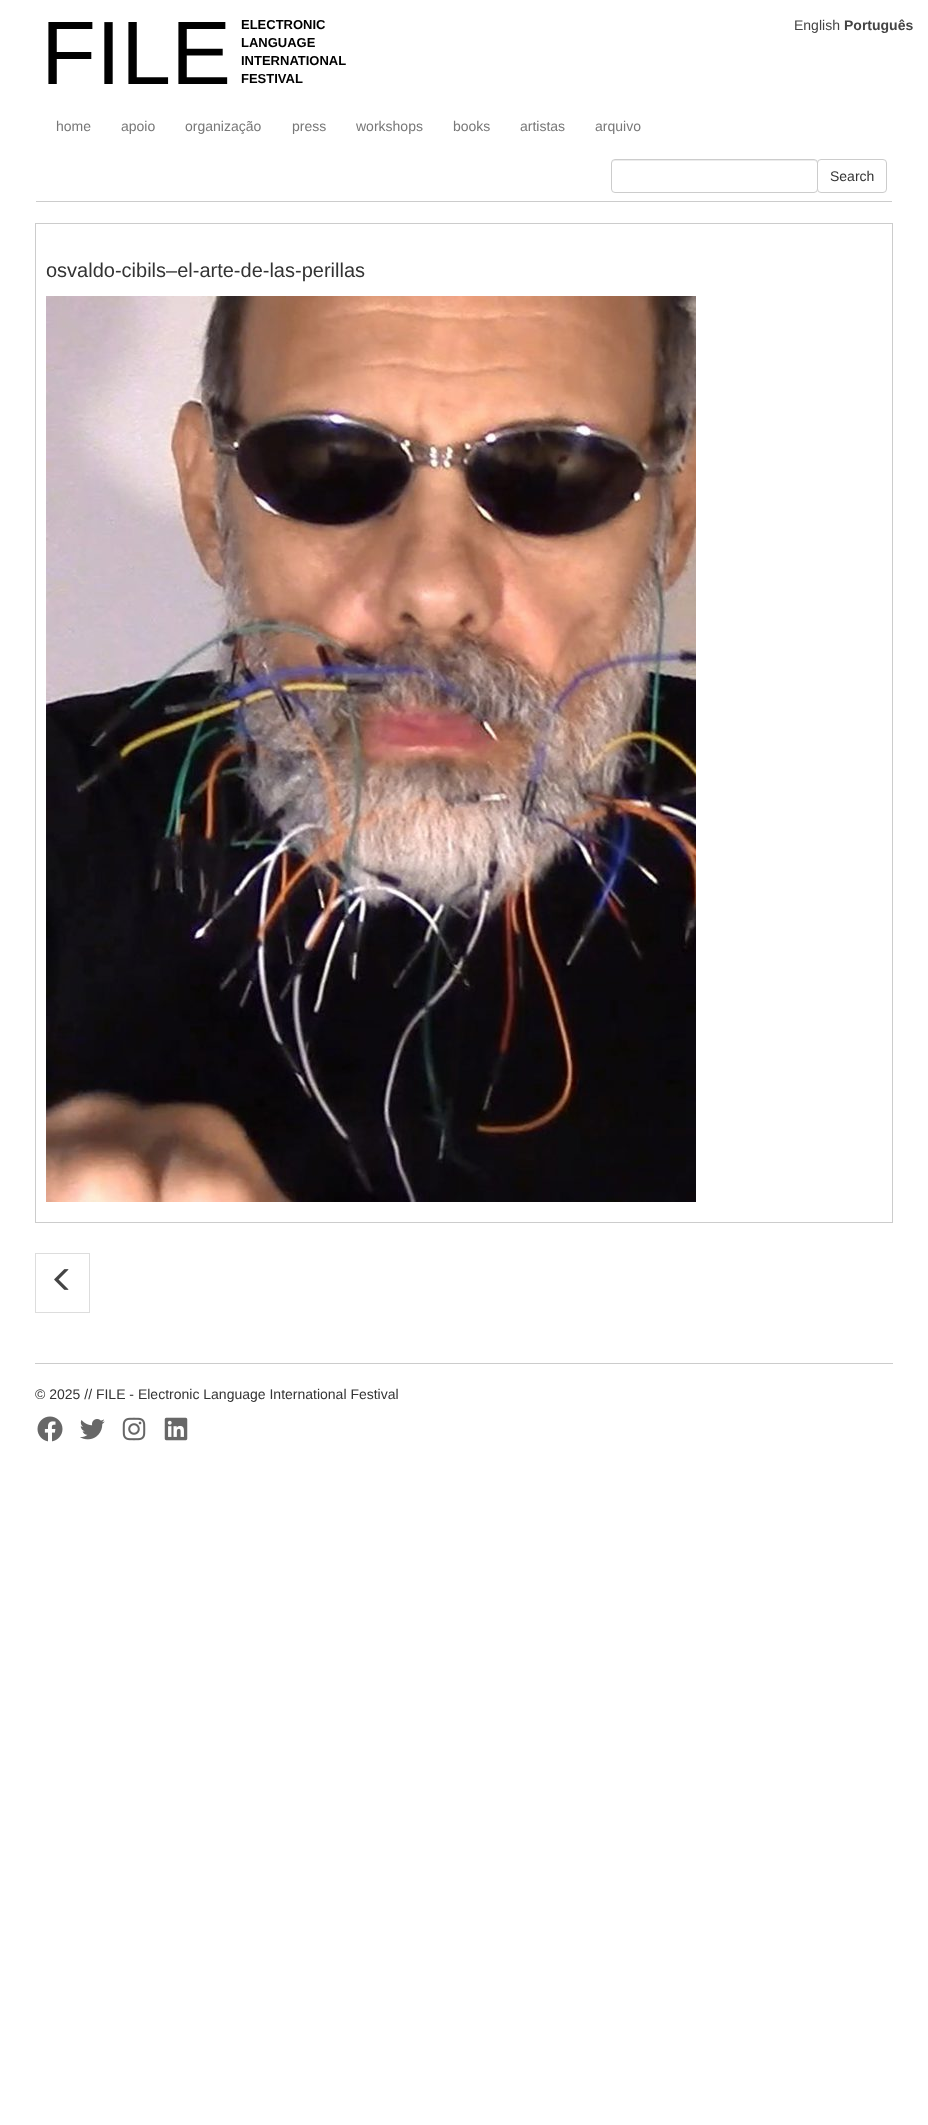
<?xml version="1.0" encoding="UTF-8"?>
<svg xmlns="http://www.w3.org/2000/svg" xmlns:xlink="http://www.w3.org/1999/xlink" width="928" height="2125">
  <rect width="100%" height="100%" fill="#ffffff" />
  <rect x="36" y="201" width="856" height="1" fill="#cccccc" />
  <path d="M 615 161 h 199 c 2 0 3 1 3 3 c 0 -2 -1 -4 -3 -4 h -199 c -2 0 -3 2 -3 4 c 0 -2 1 -3 3 -3 z" fill="#ececec" />
  <rect x="611.5" y="159.5" width="206" height="33" rx="3.5" fill="none" stroke="#cccccc" />
  <rect x="817.5" y="159.5" width="69" height="33" rx="3.5" fill="#ffffff" stroke="#cccccc" />
  <rect x="35" y="223" width="858" height="1" fill="#cccccc" />
  <rect x="892" y="224" width="1" height="999" fill="#cccccc" />
  <rect x="35" y="1222" width="858" height="1" fill="#cccccc" />
  <rect x="35" y="224" width="1" height="999" fill="#cccccc" />
  <image x="46" y="296" width="650" height="906" xlink:href="image1.png" />
  <rect x="35.5" y="1253.5" width="54" height="59" fill="none" stroke="#dddddd" />
  <image x="54" y="1269" width="15" height="21" xlink:href="image2.png" />
  <rect x="35" y="1363" width="858" height="1" fill="#cccccc" />
  <image x="37" y="1416" width="26" height="26" xlink:href="image3.png" />
  <image x="80" y="1419" width="25" height="21" xlink:href="image4.png" />
  <image x="122" y="1417" width="24" height="24" xlink:href="image5.png" />
  <image x="164" y="1417" width="24" height="24" xlink:href="image6.png" />
  <text x="41" y="84" style="font-family: Liberation Sans; font-size: 90px; fill: #000000">FILE</text>
  <text x="241" y="29" style="font-family: Liberation Sans; font-size: 13px; font-weight: bold; fill: #000000">ELECTRONIC</text>
  <text x="241" y="47" style="font-family: Liberation Sans; font-size: 13px; font-weight: bold; fill: #000000">LANGUAGE</text>
  <text x="241" y="65" style="font-family: Liberation Sans; font-size: 13px; font-weight: bold; fill: #000000">INTERNATIONAL</text>
  <text x="241" y="83" style="font-family: Liberation Sans; font-size: 13px; font-weight: bold; fill: #000000">FESTIVAL</text>
  <text x="56" y="131" style="font-family: Liberation Sans; font-size: 14px; fill: #777777">home</text>
  <text x="121" y="131" style="font-family: Liberation Sans; font-size: 14px; fill: #777777">apoio</text>
  <text x="185" y="131" style="font-family: Liberation Sans; font-size: 14px; fill: #777777">organização</text>
  <text x="292" y="131" style="font-family: Liberation Sans; font-size: 14px; fill: #777777">press</text>
  <text x="356" y="131" style="font-family: Liberation Sans; font-size: 14px; fill: #777777">workshops</text>
  <text x="453" y="131" style="font-family: Liberation Sans; font-size: 14px; fill: #777777">books</text>
  <text x="520" y="131" style="font-family: Liberation Sans; font-size: 14px; fill: #777777">artistas</text>
  <text x="595" y="131" style="font-family: Liberation Sans; font-size: 14px; fill: #777777">arquivo</text>
  <text x="830" y="181" style="font-family: Liberation Sans; font-size: 14px; fill: #333333">Search</text>
  <text x="794" y="30" style="font-family: Liberation Sans; font-size: 14px; fill: #444444">English</text>
  <text x="844" y="30" style="font-family: Liberation Sans; font-size: 14px; font-weight: bold; fill: #444444">Português</text>
  <text x="46" y="277" style="font-family: Liberation Sans; font-size: 20px; fill: #333333">osvaldo-cibils–el-arte-de-las-perillas</text>
  <text x="35" y="1399" style="font-family: Liberation Sans; font-size: 14px; fill: #333333">© 2025 // FILE - Electronic Language International Festival</text>
</svg>
